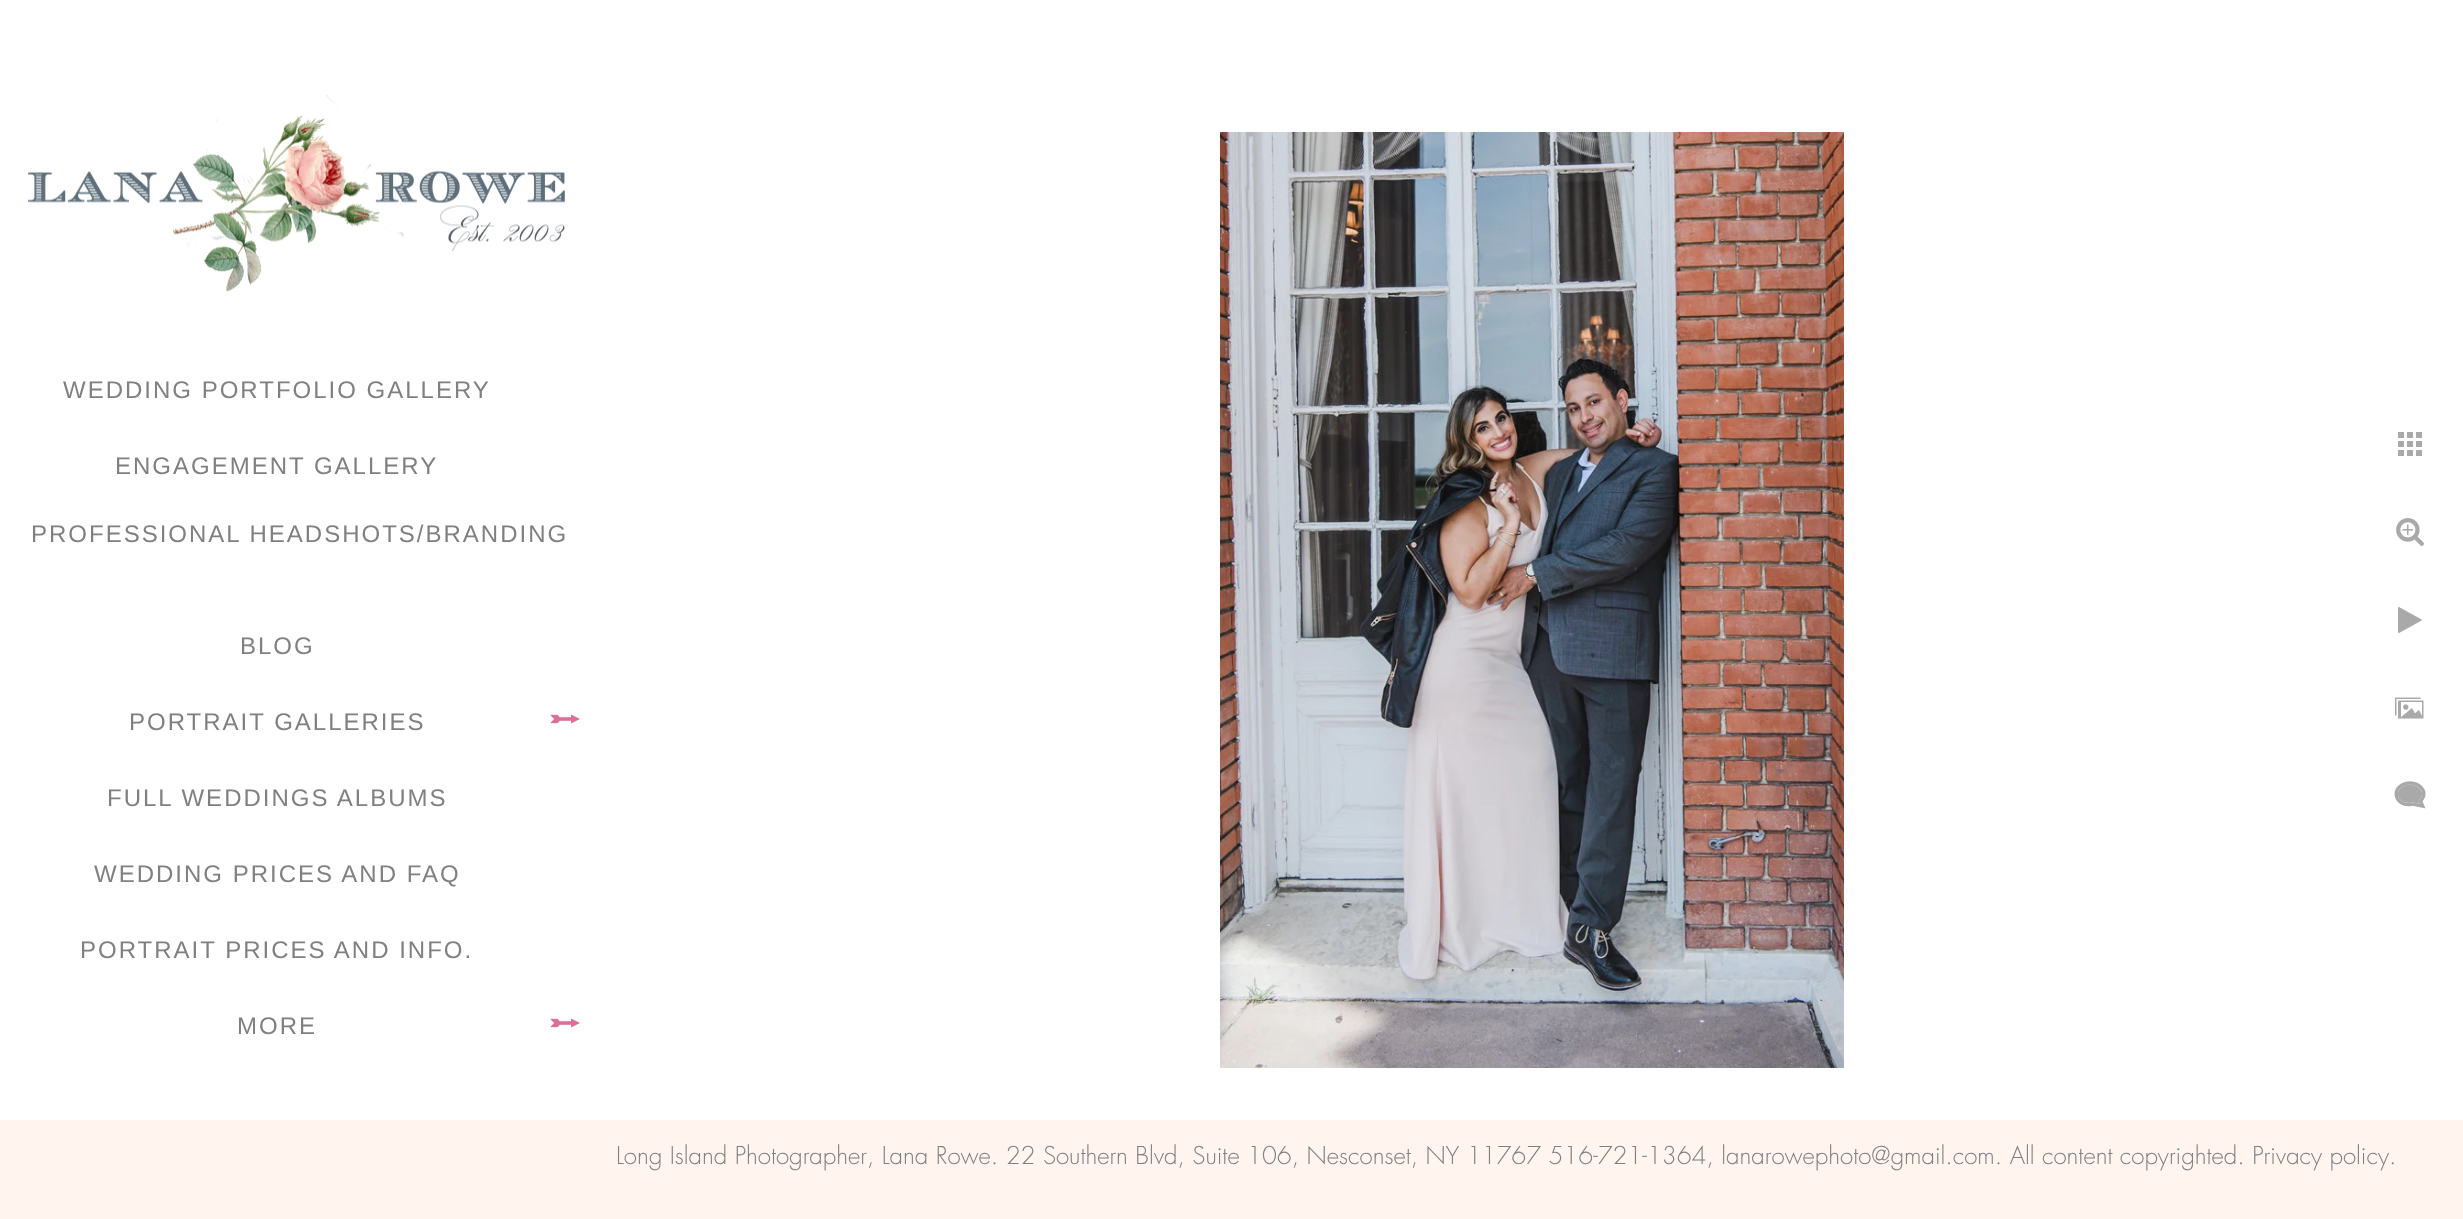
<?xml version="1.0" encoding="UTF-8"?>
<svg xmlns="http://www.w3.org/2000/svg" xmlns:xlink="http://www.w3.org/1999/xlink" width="2463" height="1219">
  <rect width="100%" height="100%" fill="#ffffff" />
  <image x="28" y="94" width="537" height="198" xlink:href="image1.png" />
  <image x="550" y="714" width="30" height="10" xlink:href="image2.png" />
  <image x="550" y="1018" width="30" height="10" xlink:href="image2.png" />
  <image x="1220" y="132" width="624" height="936" xlink:href="image3.png" />
  <image x="2398" y="432" width="24" height="24" xlink:href="image4.png" />
  <image x="2396" y="518" width="28" height="28" xlink:href="image5.png" />
  <image x="2398" y="607" width="24" height="26" xlink:href="image6.png" />
  <image x="2395" y="697" width="29" height="22" xlink:href="image7.png" />
  <image x="2394" y="781" width="32" height="28" xlink:href="image8.png" />
  <rect y="1120" width="2463" height="99" fill="#fff5ee" />
  <text x="63" y="398" style="font-family: Liberation Sans; font-size: 24px; letter-spacing: 2px; fill: #808080">WEDDING PORTFOLIO GALLERY</text>
  <text x="115" y="474" style="font-family: Liberation Sans; font-size: 24px; letter-spacing: 2px; fill: #808080">ENGAGEMENT GALLERY</text>
  <text x="31" y="542" style="font-family: Liberation Sans; font-size: 24px; letter-spacing: 2px; fill: #808080">PROFESSIONAL HEADSHOTS/BRANDING</text>
  <text x="240" y="654" style="font-family: Liberation Sans; font-size: 24px; letter-spacing: 2px; fill: #808080">BLOG</text>
  <text x="129" y="730" style="font-family: Liberation Sans; font-size: 24px; letter-spacing: 2px; fill: #808080">PORTRAIT GALLERIES</text>
  <text x="107" y="806" style="font-family: Liberation Sans; font-size: 24px; letter-spacing: 2px; fill: #808080">FULL WEDDINGS ALBUMS</text>
  <text x="94" y="882" style="font-family: Liberation Sans; font-size: 24px; letter-spacing: 2px; fill: #808080">WEDDING PRICES AND FAQ</text>
  <text x="80" y="958" style="font-family: Liberation Sans; font-size: 24px; letter-spacing: 2px; fill: #808080">PORTRAIT PRICES AND INFO.</text>
  <text x="237" y="1034" style="font-family: Liberation Sans; font-size: 24px; letter-spacing: 2px; fill: #808080">MORE</text>
  <text x="616" y="1164" style="font-family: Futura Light; font-size: 24px; font-weight: 300; fill: #808080">Long Island Photographer, Lana Rowe. 22 Southern Blvd, Suite 106, Nesconset, NY 11767 516-721-1364, lanarowephoto@gmail.com. All content copyrighted. Privacy policy.</text>
</svg>
